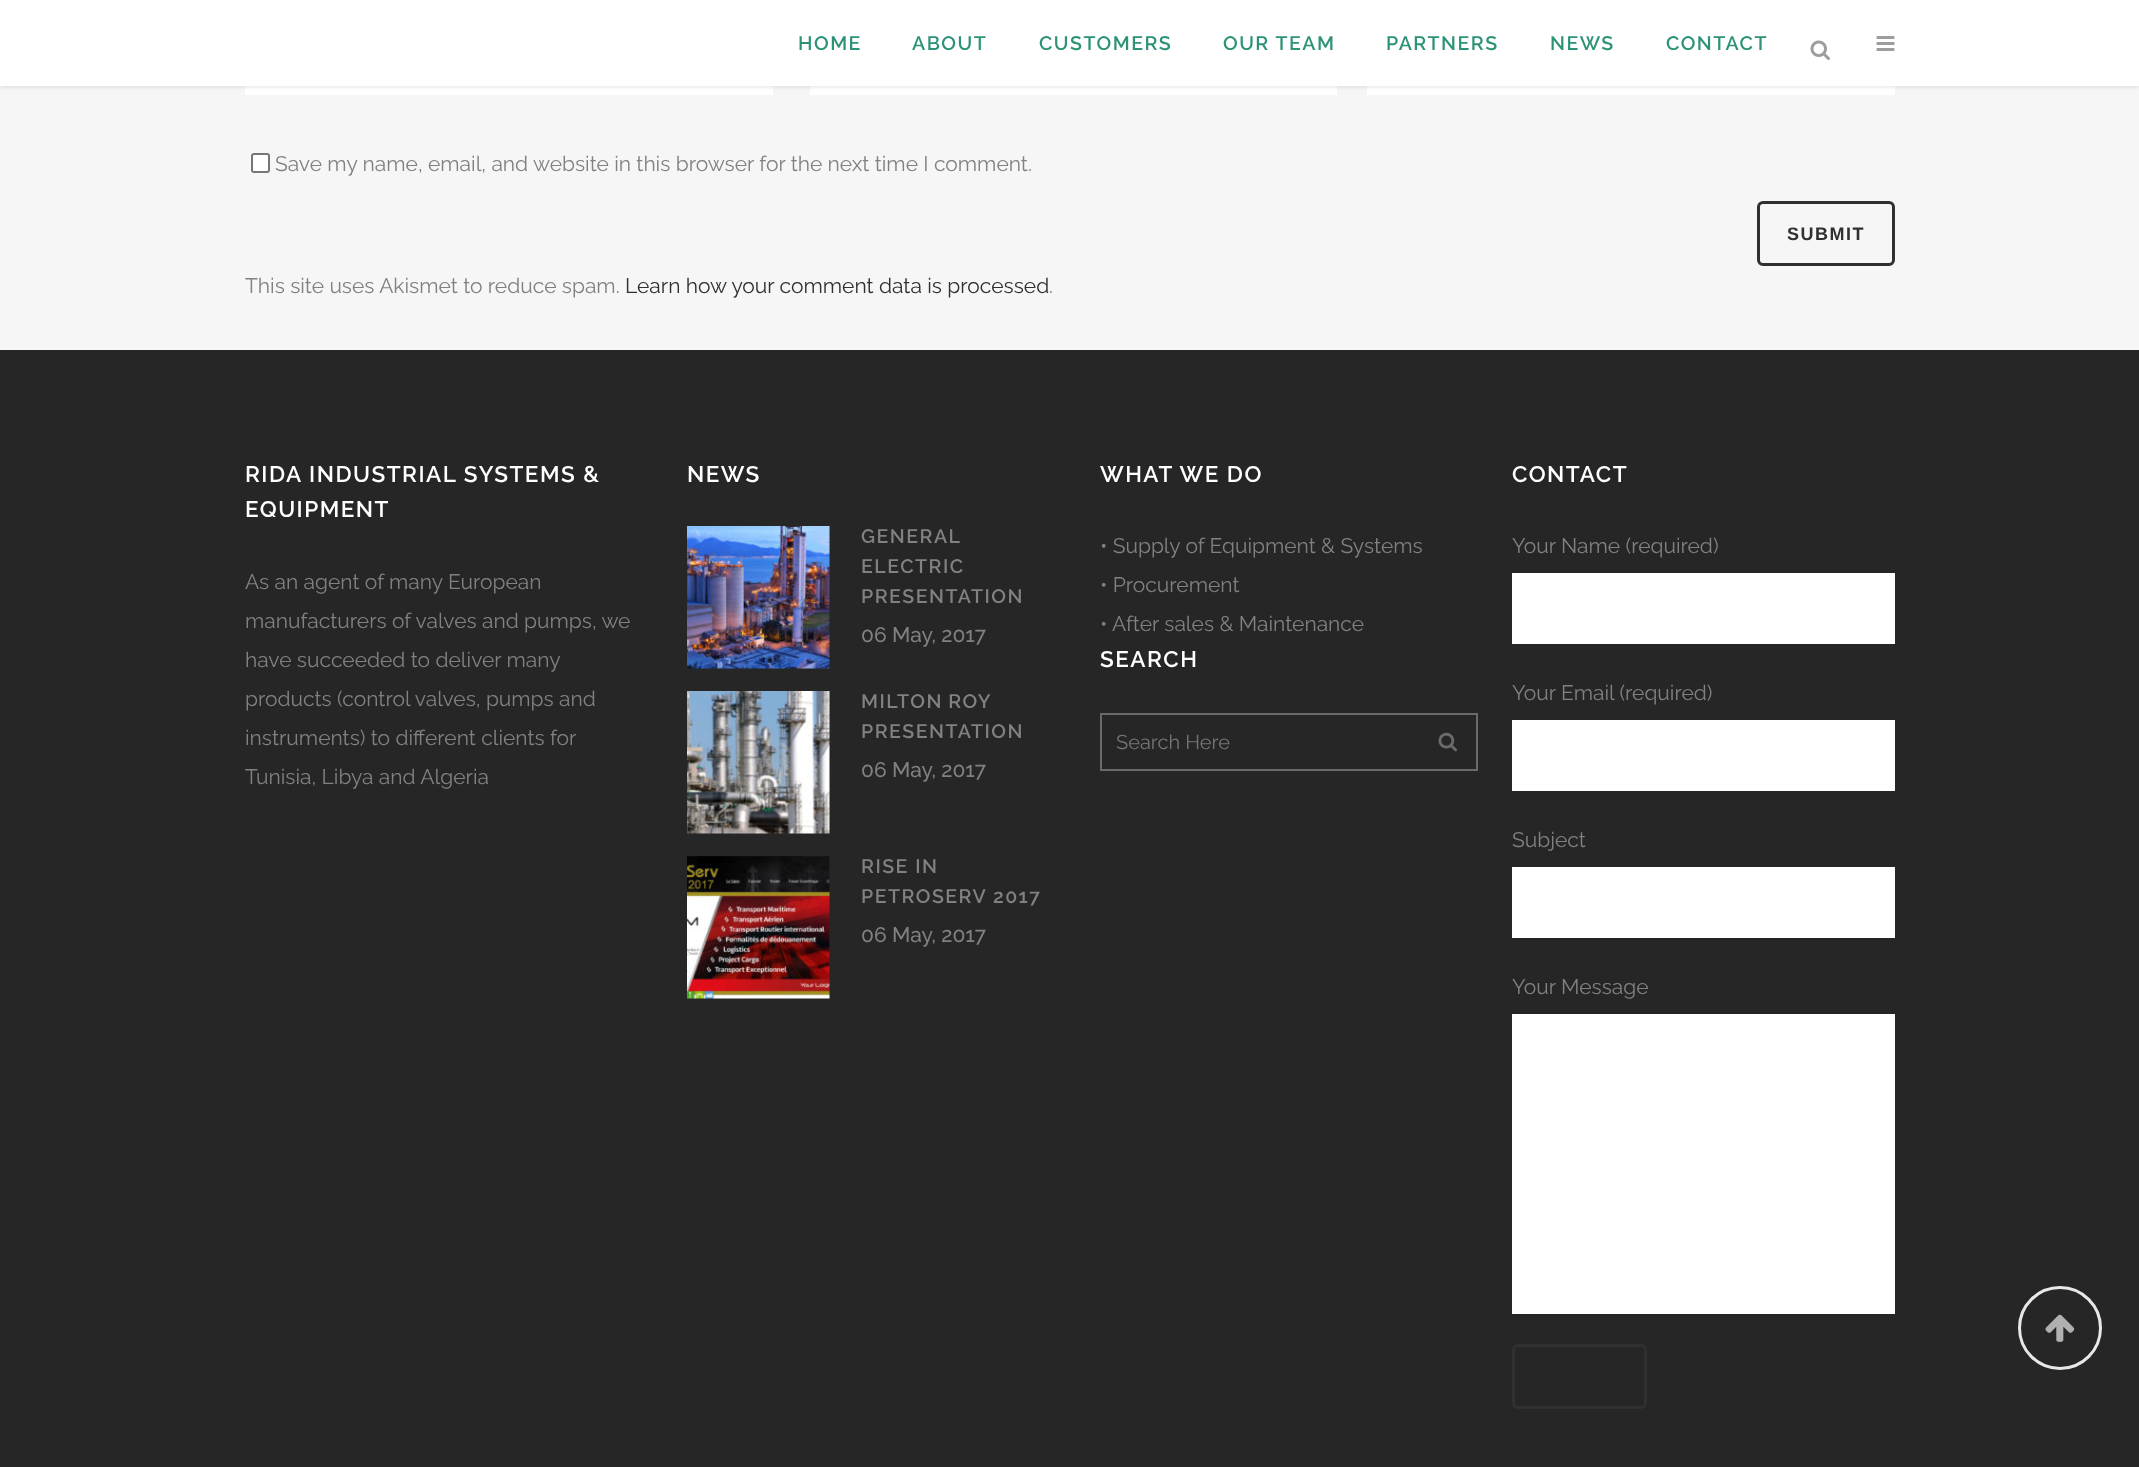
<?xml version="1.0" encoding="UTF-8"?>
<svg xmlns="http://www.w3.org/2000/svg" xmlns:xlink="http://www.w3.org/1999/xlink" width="2139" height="1467">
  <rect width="100%" height="100%" fill="#f6f6f6" />
  <rect x="245" y="86" width="528" height="9" fill="#ffffff" />
  <rect x="810" y="86" width="527" height="9" fill="#ffffff" />
  <rect x="1367" y="86" width="528" height="9" fill="#ffffff" />
  <rect y="2" width="2139" height="85" fill="#000000" fill-opacity="0.11" filter="blur(2px)" />
  <rect width="2139" height="86" fill="#ffffff" />
  <image x="1810" y="40" width="20" height="20" xlink:href="image1.png" />
  <image x="1876" y="36" width="19" height="15" xlink:href="image2.png" />
  <rect x="252" y="154" width="17" height="18" rx="2" fill="#ffffff" stroke="#767676" stroke-width="2" />
  <rect x="1758.5" y="202.5" width="135" height="62" rx="4.5" fill="none" stroke="#303030" stroke-width="3" />
  <rect y="350" width="2139" height="1117" fill="#262626" />
  <image x="687" y="526" width="143" height="143" xlink:href="image3.png" />
  <image x="687" y="691" width="143" height="143" xlink:href="image4.png" />
  <image x="687" y="856" width="143" height="143" xlink:href="image5.png" />
  <rect x="1101" y="714" width="376" height="56" fill="none" stroke="#6a6a6a" stroke-width="2" />
  <image x="1438" y="732" width="19" height="20" xlink:href="image6.png" />
  <rect x="1512" y="573" width="383" height="71" fill="#ffffff" />
  <rect x="1512" y="720" width="383" height="71" fill="#ffffff" />
  <rect x="1512" y="867" width="383" height="71" fill="#ffffff" />
  <rect x="1512" y="1014" width="383" height="300" fill="#ffffff" />
  <rect x="1513.5" y="1345.5" width="132" height="62" rx="4.5" fill="none" stroke="#303030" stroke-width="3" />
  <circle cx="2060" cy="1328" r="40.5" fill="none" stroke="#e8e8e8" stroke-width="3" />
  <image x="2045" y="1314" width="30" height="28" xlink:href="image7.png" />
  <text x="798" y="50" style="font-family: Raleway; font-size: 19.5px; font-weight: 600; letter-spacing: 1.5px; fill: #2d9378">HOME</text>
  <text x="912" y="50" style="font-family: Raleway; font-size: 19.5px; font-weight: 600; letter-spacing: 1.5px; fill: #2d9378">ABOUT</text>
  <text x="1039" y="50" style="font-family: Raleway; font-size: 19.5px; font-weight: 600; letter-spacing: 1.5px; fill: #2d9378">CUSTOMERS</text>
  <text x="1223" y="50" style="font-family: Raleway; font-size: 19.5px; font-weight: 600; letter-spacing: 1.5px; fill: #2d9378">OUR TEAM</text>
  <text x="1386" y="50" style="font-family: Raleway; font-size: 19.5px; font-weight: 600; letter-spacing: 1.5px; fill: #2d9378">PARTNERS</text>
  <text x="1550" y="50" style="font-family: Raleway; font-size: 19.5px; font-weight: 600; letter-spacing: 1.5px; fill: #2d9378">NEWS</text>
  <text x="1666" y="50" style="font-family: Raleway; font-size: 19.5px; font-weight: 600; letter-spacing: 1.5px; fill: #2d9378">CONTACT</text>
  <text x="275" y="171" style="font-family: Raleway; font-size: 21px; fill: #818181">Save my name, email, and website in this browser for the next time I comment.</text>
  <text x="1787" y="240" style="font-family: Liberation Sans; font-size: 18px; font-weight: bold; letter-spacing: 1.5px; fill: #303030">SUBMIT</text>
  <text x="245" y="293" style="font-family: Raleway; font-size: 21px; fill: #818181">This site uses Akismet to reduce spam.</text>
  <text x="625" y="293" style="font-family: Raleway; font-size: 21px; fill: #303030">Learn how your comment data is processed</text>
  <text x="1049" y="293" style="font-family: Raleway; font-size: 21px; fill: #818181">.</text>
  <text x="245" y="482" style="font-family: Raleway; font-size: 22.5px; font-weight: 600; letter-spacing: 1.5px; fill: #ffffff">RIDA INDUSTRIAL SYSTEMS &amp;</text>
  <text x="245" y="517" style="font-family: Raleway; font-size: 22.5px; font-weight: 600; letter-spacing: 1.5px; fill: #ffffff">EQUIPMENT</text>
  <text x="245" y="589" style="font-family: Raleway; font-size: 21px; fill: #818181">As an agent of many European</text>
  <text x="245" y="628" style="font-family: Raleway; font-size: 21px; fill: #818181">manufacturers of valves and pumps, we</text>
  <text x="245" y="667" style="font-family: Raleway; font-size: 21px; fill: #818181">have succeeded to deliver many</text>
  <text x="245" y="706" style="font-family: Raleway; font-size: 21px; fill: #818181">products (control valves, pumps and</text>
  <text x="245" y="745" style="font-family: Raleway; font-size: 21px; fill: #818181">instruments) to different clients for</text>
  <text x="245" y="784" style="font-family: Raleway; font-size: 21px; fill: #818181">Tunisia, Libya and Algeria</text>
  <text x="687" y="482" style="font-family: Raleway; font-size: 22.5px; font-weight: 600; letter-spacing: 1.5px; fill: #ffffff">NEWS</text>
  <text x="861" y="543" style="font-family: Raleway; font-size: 19.5px; font-weight: 600; letter-spacing: 1.5px; fill: #818181">GENERAL</text>
  <text x="861" y="573" style="font-family: Raleway; font-size: 19.5px; font-weight: 600; letter-spacing: 1.5px; fill: #818181">ELECTRIC</text>
  <text x="861" y="603" style="font-family: Raleway; font-size: 19.5px; font-weight: 600; letter-spacing: 1.5px; fill: #818181">PRESENTATION</text>
  <text x="861" y="642" style="font-family: Raleway; font-size: 21px; font-weight: 500; fill: #818181">06 May, 2017</text>
  <text x="861" y="708" word-spacing="-1" style="font-family: Raleway; font-size: 19.5px; font-weight: 600; letter-spacing: 1.5px; fill: #818181">MILTON ROY</text>
  <text x="861" y="738" style="font-family: Raleway; font-size: 19.5px; font-weight: 600; letter-spacing: 1.5px; fill: #818181">PRESENTATION</text>
  <text x="861" y="777" style="font-family: Raleway; font-size: 21px; font-weight: 500; fill: #818181">06 May, 2017</text>
  <text x="861" y="873" style="font-family: Raleway; font-size: 19.5px; font-weight: 600; letter-spacing: 1.5px; fill: #818181">RISE IN</text>
  <text x="861" y="903" style="font-family: Raleway; font-size: 19.5px; font-weight: 600; letter-spacing: 1.5px; fill: #818181">PETROSERV 2017</text>
  <text x="861" y="942" style="font-family: Raleway; font-size: 21px; font-weight: 500; fill: #818181">06 May, 2017</text>
  <text x="1100" y="482" style="font-family: Raleway; font-size: 22.5px; font-weight: 600; letter-spacing: 1.5px; fill: #ffffff">WHAT WE DO</text>
  <text x="1100" y="553" style="font-family: Raleway; font-size: 21px; fill: #818181">• Supply of Equipment &amp; Systems</text>
  <text x="1100" y="592" style="font-family: Raleway; font-size: 21px; fill: #818181">• Procurement</text>
  <text x="1100" y="631" style="font-family: Raleway; font-size: 21px; fill: #818181">• After sales &amp; Maintenance</text>
  <text x="1100" y="667" style="font-family: Raleway; font-size: 22.5px; font-weight: 600; letter-spacing: 1.5px; fill: #ffffff">SEARCH</text>
  <text x="1116" y="749" style="font-family: Raleway; font-size: 20px; fill: #757575">Search Here</text>
  <text x="1512" y="482" style="font-family: Raleway; font-size: 22.5px; font-weight: 600; letter-spacing: 1.5px; fill: #ffffff">CONTACT</text>
  <text x="1512" y="553" style="font-family: Raleway; font-size: 21px; fill: #818181">Your Name (required)</text>
  <text x="1512" y="700" style="font-family: Raleway; font-size: 21px; fill: #818181">Your Email (required)</text>
  <text x="1512" y="847" style="font-family: Raleway; font-size: 21px; fill: #818181">Subject</text>
  <text x="1512" y="994" style="font-family: Raleway; font-size: 21px; fill: #818181">Your Message</text>
</svg>
